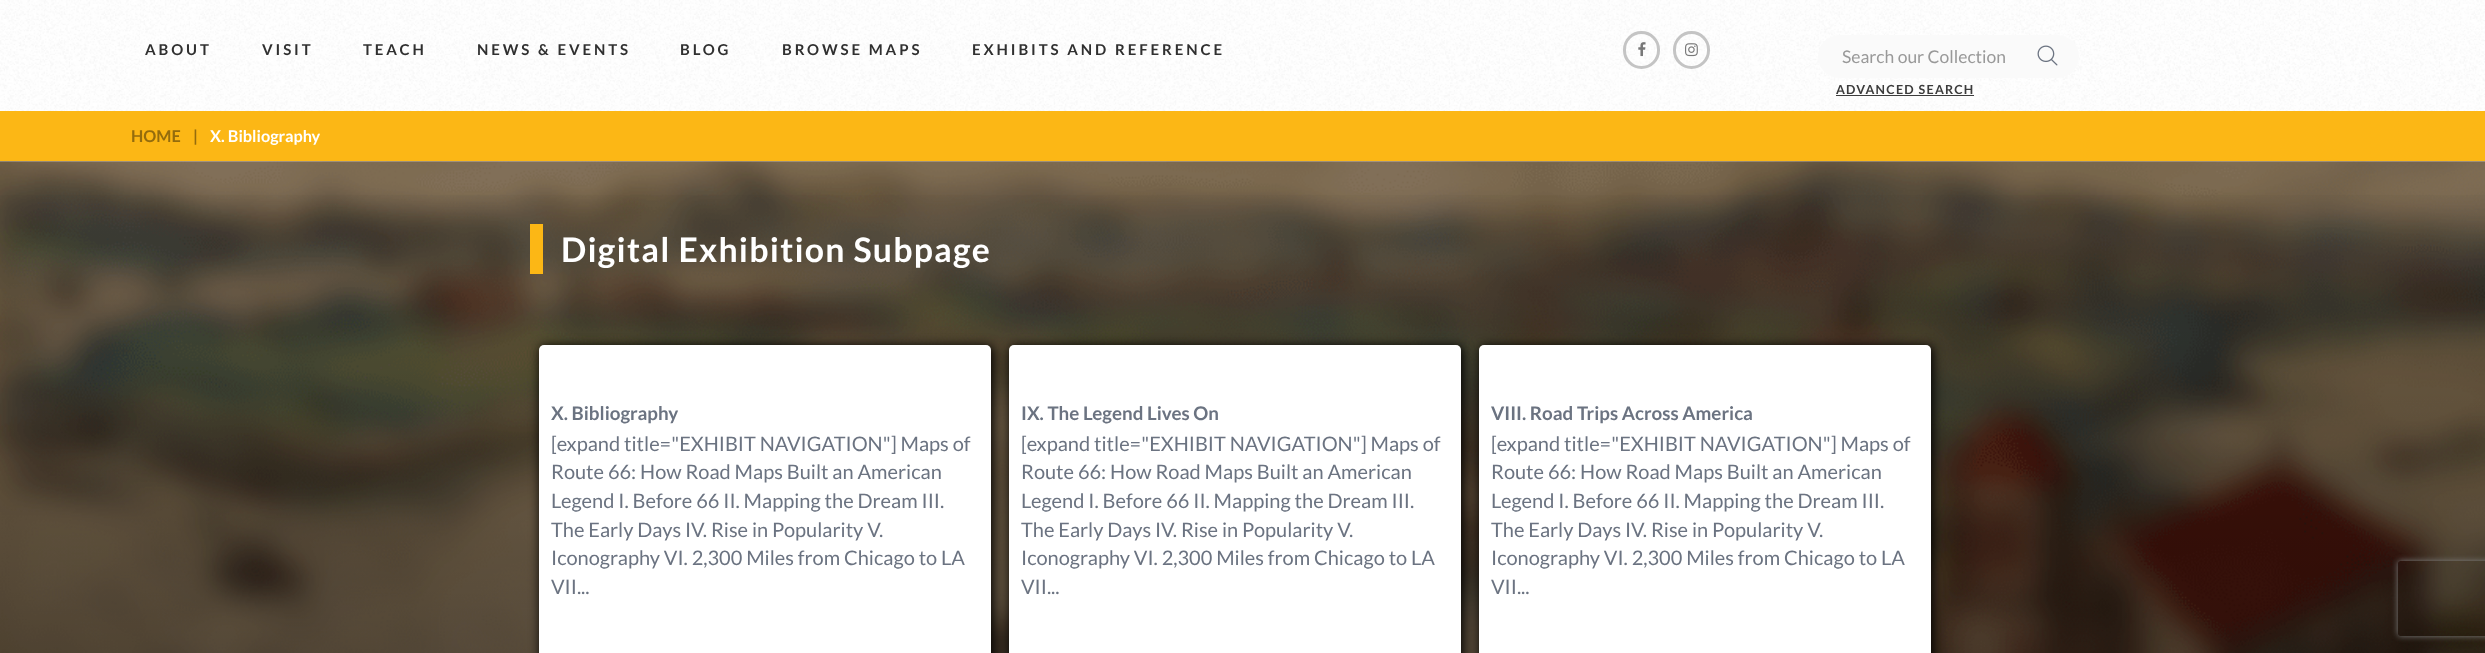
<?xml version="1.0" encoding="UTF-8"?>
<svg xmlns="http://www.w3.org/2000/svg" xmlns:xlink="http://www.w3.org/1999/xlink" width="2485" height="653">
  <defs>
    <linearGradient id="g1" gradientUnits="userSpaceOnUse" x1="1243" y1="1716" x2="1243" y2="161"><stop offset="0" stop-color="#000000" /><stop offset="1" stop-color="#000000" stop-opacity="0" /></linearGradient>
    <clipPath id="clip1"><path d="M 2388 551 h 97 v 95 h -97 z m 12.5 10 h 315 c 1.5 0 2.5 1 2.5 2.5 v 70 c 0 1.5 -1 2.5 -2.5 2.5 h -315 c -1.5 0 -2.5 -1 -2.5 -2.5 v -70 c 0 -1.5 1 -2.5 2.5 -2.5 z" clip-rule="evenodd" /></clipPath>
  </defs>
  <rect width="100%" height="100%" fill="#ffffff" />
  <image x="0" y="0" width="2485" height="111" xlink:href="image1.png" />
  <rect x="1624.5" y="32.5" width="34" height="35" rx="17" fill="none" stroke="#c4c4c4" stroke-width="3" />
  <image x="1638" y="42" width="8" height="15" xlink:href="image2.png" />
  <rect x="1674.5" y="32.5" width="34" height="35" rx="17" fill="none" stroke="#c4c4c4" stroke-width="3" />
  <image x="1685" y="43" width="13" height="14" xlink:href="image3.png" />
  <rect x="1818" y="35" width="261" height="43" rx="21.5" fill="#fafafa" />
  <image x="2037" y="45" width="21" height="21" xlink:href="image4.png" />
  <rect x="1836" y="95" width="138" height="1" fill="#3c3c3c" />
  <rect y="111" width="2485" height="50" fill="#fcb715" />
  <image x="0" y="161" width="2485" height="492" xlink:href="image5.png" />
  <rect y="195" width="2485" height="458" fill="url(#g1)" />
  <rect x="530" y="224" width="13" height="50" fill="#fcb715" />
  <rect x="540" y="346" width="453" height="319" rx="5" fill="#000000" filter="blur(5.5px)" />
  <rect x="539" y="345" width="452" height="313" rx="5" fill="#ffffff" />
  <rect x="1010" y="346" width="453" height="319" rx="5" fill="#000000" filter="blur(5.5px)" />
  <rect x="1009" y="345" width="452" height="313" rx="5" fill="#ffffff" />
  <rect x="1480" y="346" width="453" height="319" rx="5" fill="#000000" filter="blur(5.5px)" />
  <rect x="1479" y="345" width="452" height="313" rx="5" fill="#ffffff" />
  <g clip-path="url(#clip1)">
    <rect x="2398" y="561" width="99" height="75" rx="2.5" fill="#808080" filter="blur(3px)" />
  </g>
  <text x="145" y="55" style="font-family: Lato; font-size: 15px; font-weight: bold; letter-spacing: 2.9px; fill: #303030">ABOUT</text>
  <text x="262" y="55" style="font-family: Lato; font-size: 15px; font-weight: bold; letter-spacing: 2.9px; fill: #303030">VISIT</text>
  <text x="363" y="55" style="font-family: Lato; font-size: 15px; font-weight: bold; letter-spacing: 2.9px; fill: #303030">TEACH</text>
  <text x="477" y="55" style="font-family: Lato; font-size: 15px; font-weight: bold; letter-spacing: 2.9px; fill: #303030">NEWS &amp; EVENTS</text>
  <text x="680" y="55" style="font-family: Lato; font-size: 15px; font-weight: bold; letter-spacing: 2.9px; fill: #303030">BLOG</text>
  <text x="782" y="55" style="font-family: Lato; font-size: 15px; font-weight: bold; letter-spacing: 2.9px; fill: #303030">BROWSE MAPS</text>
  <text x="972" y="55" style="font-family: Lato; font-size: 15px; font-weight: bold; letter-spacing: 2.9px; fill: #303030">EXHIBITS AND REFERENCE</text>
  <text x="1842" y="63" style="font-family: Lato; font-size: 17.5px; fill: #999999">Search our Collection</text>
  <text x="1836" y="94" style="font-family: Lato; font-size: 12.5px; font-weight: bold; letter-spacing: 1.25px; fill: #3c3c3c">ADVANCED SEARCH</text>
  <text x="131" y="142" style="font-family: Lato; font-size: 16.25px; font-weight: bold; fill: #946c0d">HOME</text>
  <text x="193" y="142" style="font-family: Lato; font-size: 16.25px; font-weight: bold; fill: #946c0d">|</text>
  <text x="210" y="142" style="font-family: Lato; font-size: 16.25px; font-weight: bold; fill: #ffffff">X. Bibliography</text>
  <text x="561" y="262" style="font-family: Lato; font-size: 33.75px; font-weight: bold; letter-spacing: 1.25px; fill: #ffffff">Digital Exhibition Subpage</text>
  <text x="551" y="420" style="font-family: Lato; font-size: 18.75px; font-weight: bold; fill: #6b7381">X. Bibliography</text>
  <text x="551" y="451" style="font-family: Lato; font-size: 20px; fill: #6b7381">[expand title="EXHIBIT NAVIGATION"] Maps of</text>
  <text x="551" y="479" style="font-family: Lato; font-size: 20px; fill: #6b7381">Route 66: How Road Maps Built an American</text>
  <text x="551" y="508" style="font-family: Lato; font-size: 20px; fill: #6b7381">Legend I. Before 66 II. Mapping the Dream III.</text>
  <text x="551" y="537" style="font-family: Lato; font-size: 20px; fill: #6b7381">The Early Days IV. Rise in Popularity V.</text>
  <text x="551" y="565" style="font-family: Lato; font-size: 20px; fill: #6b7381">Iconography VI. 2,300 Miles from Chicago to LA</text>
  <text x="551" y="594" style="font-family: Lato; font-size: 20px; fill: #6b7381">VII...</text>
  <text x="1021" y="420" style="font-family: Lato; font-size: 18.75px; font-weight: bold; fill: #6b7381">IX. The Legend Lives On</text>
  <text x="1021" y="451" style="font-family: Lato; font-size: 20px; fill: #6b7381">[expand title="EXHIBIT NAVIGATION"] Maps of</text>
  <text x="1021" y="479" style="font-family: Lato; font-size: 20px; fill: #6b7381">Route 66: How Road Maps Built an American</text>
  <text x="1021" y="508" style="font-family: Lato; font-size: 20px; fill: #6b7381">Legend I. Before 66 II. Mapping the Dream III.</text>
  <text x="1021" y="537" style="font-family: Lato; font-size: 20px; fill: #6b7381">The Early Days IV. Rise in Popularity V.</text>
  <text x="1021" y="565" style="font-family: Lato; font-size: 20px; fill: #6b7381">Iconography VI. 2,300 Miles from Chicago to LA</text>
  <text x="1021" y="594" style="font-family: Lato; font-size: 20px; fill: #6b7381">VII...</text>
  <text x="1491" y="420" style="font-family: Lato; font-size: 18.75px; font-weight: bold; fill: #6b7381">VIII. Road Trips Across America</text>
  <text x="1491" y="451" style="font-family: Lato; font-size: 20px; fill: #6b7381">[expand title="EXHIBIT NAVIGATION"] Maps of</text>
  <text x="1491" y="479" style="font-family: Lato; font-size: 20px; fill: #6b7381">Route 66: How Road Maps Built an American</text>
  <text x="1491" y="508" style="font-family: Lato; font-size: 20px; fill: #6b7381">Legend I. Before 66 II. Mapping the Dream III.</text>
  <text x="1491" y="537" style="font-family: Lato; font-size: 20px; fill: #6b7381">The Early Days IV. Rise in Popularity V.</text>
  <text x="1491" y="565" style="font-family: Lato; font-size: 20px; fill: #6b7381">Iconography VI. 2,300 Miles from Chicago to LA</text>
  <text x="1491" y="594" style="font-family: Lato; font-size: 20px; fill: #6b7381">VII...</text>
</svg>
